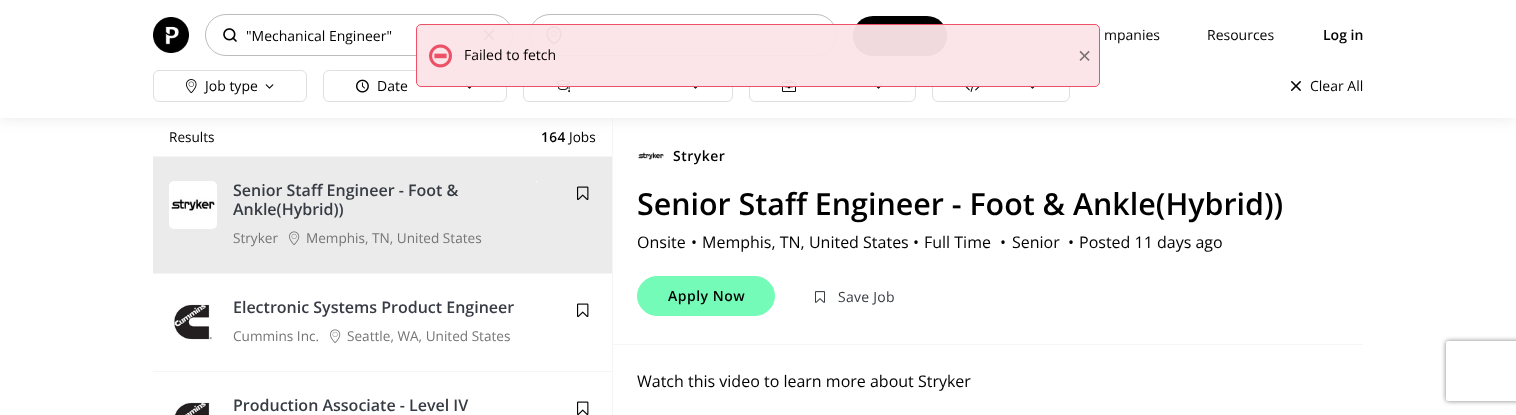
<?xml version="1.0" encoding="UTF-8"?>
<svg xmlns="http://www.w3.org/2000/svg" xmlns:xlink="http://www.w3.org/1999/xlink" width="1516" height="415">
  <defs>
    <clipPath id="clip1"><rect x="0" y="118" width="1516" height="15" /></clipPath>
    <clipPath id="clip2"><path d="M 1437 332 h 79 v 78 h -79 z m 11 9 h 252 c 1 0 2 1 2 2 v 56 c 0 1 -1 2 -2 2 h -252 c -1 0 -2 -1 -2 -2 v -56 c 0 -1 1 -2 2 -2 z" clip-rule="evenodd" /></clipPath>
  </defs>
  <rect width="100%" height="100%" fill="#ffffff" />
  <rect x="612" y="118" width="1" height="297" fill="#f5f5f5" />
  <g clip-path="url(#clip1)">
    <rect width="1516" height="118" fill="#e8e8e8" filter="blur(7.5px)" />
  </g>
  <image x="153" y="17" width="36" height="36" xlink:href="image1.png" />
  <image x="223" y="28" width="14" height="14" xlink:href="image2.png" />
  <rect x="205.5" y="14.5" width="307" height="41" rx="20.5" fill="none" stroke="#bcbcbc" />
  <image x="484" y="30" width="10" height="10" xlink:href="image3.png" />
  <image x="546" y="26" width="16" height="18" xlink:href="image4.png" />
  <rect x="529.5" y="14.5" width="307" height="41" rx="20.5" fill="none" stroke="#bcbcbc" />
  <rect x="853" y="16" width="94" height="40" rx="20" fill="#000000" />
  <rect x="153.5" y="70.5" width="153" height="31" rx="5.5" fill="none" stroke="#dfdfdf" />
  <image x="186" y="79" width="11" height="15" xlink:href="image5.png" />
  <image x="265" y="84" width="9" height="5" xlink:href="image6.png" />
  <rect x="323.5" y="70.5" width="183" height="31" rx="5.5" fill="none" stroke="#dfdfdf" />
  <image x="356" y="79" width="13" height="14" xlink:href="image7.png" />
  <image x="465" y="84" width="9" height="5" xlink:href="image6.png" />
  <rect x="523.5" y="70.5" width="209" height="31" rx="5.5" fill="none" stroke="#dfdfdf" />
  <image x="556" y="80" width="14" height="13" xlink:href="image8.png" />
  <image x="691" y="84" width="9" height="5" xlink:href="image6.png" />
  <rect x="749.5" y="70.5" width="166" height="31" rx="5.5" fill="none" stroke="#dfdfdf" />
  <image x="782" y="80" width="14" height="12" xlink:href="image9.png" />
  <image x="874" y="84" width="9" height="5" xlink:href="image6.png" />
  <rect x="932.5" y="70.5" width="137" height="31" rx="5.5" fill="none" stroke="#dfdfdf" />
  <image x="965" y="81" width="15" height="11" xlink:href="image10.png" />
  <image x="1028" y="84" width="9" height="5" xlink:href="image6.png" />
  <image x="1291" y="81" width="10" height="10" xlink:href="image3.png" />
  <rect x="153" y="156" width="459" height="1" fill="#f5f5f5" />
  <rect x="153" y="157" width="459" height="116" fill="#ebebeb" />
  <image x="169" y="181" width="48" height="48" xlink:href="image11.png" />
  <rect x="536" y="181" width="1" height="1" fill="#ffffff" />
  <image x="289" y="231" width="11" height="14" xlink:href="image12.png" />
  <image x="577" y="186" width="12" height="14" xlink:href="image13.png" />
  <rect x="153" y="273" width="459" height="1" fill="#f5f5f5" />
  <image x="174" y="304" width="38" height="36" xlink:href="image14.png" />
  <image x="330" y="329" width="11" height="14" xlink:href="image15.png" />
  <image x="577" y="303" width="12" height="14" xlink:href="image16.png" />
  <rect x="153" y="371" width="459" height="1" fill="#f5f5f5" />
  <image x="174" y="402" width="36" height="13" xlink:href="image17.png" />
  <image x="577" y="401" width="12" height="14" xlink:href="image16.png" />
  <rect x="613" y="344" width="750" height="1" fill="#f5f5f5" />
  <image x="638" y="152" width="26" height="8" xlink:href="image18.png" />
  <rect x="637.5" y="276.5" width="137" height="39" rx="19.5" fill="#75fbb8" stroke="#75fbb8" />
  <image x="815" y="291" width="10" height="12" xlink:href="image19.png" />
  <rect x="417" y="25" width="682" height="61" rx="5" fill="#ffffff" fill-opacity="0.95" />
  <rect x="416.5" y="24.5" width="683" height="62" rx="4.5" fill="#ec5167" fill-opacity="0.15" stroke="#ec5167" />
  <image x="429" y="44" width="23" height="24" xlink:href="image20.png" />
  <g clip-path="url(#clip2)">
    <rect x="1446" y="341" width="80" height="60" rx="2" fill="#808080" filter="blur(2.5px)" />
  </g>
  <text x="246" y="41" style="font-family: Open Sans; font-size: 14px; fill: #000000">"Mechanical Engineer"</text>
  <text x="1104" y="40" style="font-family: Open Sans; font-size: 14px; fill: #000000">mpanies</text>
  <text x="1207" y="40" style="font-family: Open Sans; font-size: 14px; fill: #000000">Resources</text>
  <text x="1323" y="40" style="font-family: Open Sans; font-size: 14px; font-weight: 600; fill: #000000">Log in</text>
  <text x="205" y="91" style="font-family: Open Sans; font-size: 14px; fill: #000000">Job type</text>
  <text x="377" y="91" style="font-family: Open Sans; font-size: 14px; fill: #000000">Date</text>
  <text x="1310" y="91" style="font-family: Open Sans; font-size: 14px; fill: #000000">Clear All</text>
  <text x="169" y="142" style="font-family: Open Sans; font-size: 13.6px; fill: #000000">Results</text>
  <text x="541" y="142" style="font-family: Open Sans; font-size: 13.6px; font-weight: 600; letter-spacing: 0.5px; fill: #000000">164</text>
  <text x="569" y="142" style="font-family: Open Sans; font-size: 13.6px; fill: #000000">Jobs</text>
  <text x="233" y="196" style="font-family: Open Sans; font-size: 16px; font-weight: 600; fill: #373c44">Senior Staff Engineer - Foot &amp;</text>
  <text x="233" y="215" style="font-family: Open Sans; font-size: 16px; font-weight: 600; fill: #373c44">Ankle(Hybrid))</text>
  <text x="233" y="243" style="font-family: Open Sans; font-size: 13.6px; fill: #757575">Stryker</text>
  <text x="306" y="243" style="font-family: Open Sans; font-size: 13.6px; fill: #757575">Memphis, TN, United States</text>
  <text x="233" y="313" style="font-family: Open Sans; font-size: 16px; font-weight: 600; fill: #373c44">Electronic Systems Product Engineer</text>
  <text x="233" y="341" style="font-family: Open Sans; font-size: 13.6px; fill: #757575">Cummins Inc.</text>
  <text x="347" y="341" style="font-family: Open Sans; font-size: 13.6px; fill: #757575">Seattle, WA, United States</text>
  <text x="233" y="411" style="font-family: Open Sans; font-size: 16px; font-weight: 600; fill: #373c44">Production Associate - Level IV</text>
  <text x="673" y="161" style="font-family: Open Sans; font-size: 14px; font-weight: 600; letter-spacing: 0.5px; fill: #000000">Stryker</text>
  <text x="637" y="215" style="font-family: Open Sans; font-size: 30.4px; font-weight: 600; fill: #000000">Senior Staff Engineer - Foot &amp; Ankle(Hybrid))</text>
  <text x="637" y="248" style="font-family: Open Sans; font-size: 16px; fill: #000000">Onsite</text>
  <text x="691" y="248" style="font-family: Open Sans; font-size: 16px; fill: #000000">•</text>
  <text x="702" y="248" style="font-family: Open Sans; font-size: 16px; fill: #000000">Memphis, TN, United States</text>
  <text x="913" y="248" style="font-family: Open Sans; font-size: 16px; fill: #000000">•</text>
  <text x="924" y="248" style="font-family: Open Sans; font-size: 16px; fill: #000000">Full Time</text>
  <text x="1000" y="248" style="font-family: Open Sans; font-size: 16px; fill: #000000">•</text>
  <text x="1012" y="248" style="font-family: Open Sans; font-size: 16px; fill: #000000">Senior</text>
  <text x="1068" y="248" style="font-family: Open Sans; font-size: 16px; fill: #000000">•</text>
  <text x="1079" y="248" style="font-family: Open Sans; font-size: 16px; fill: #000000">Posted 11 days ago</text>
  <text x="668" y="301" style="font-family: Open Sans; font-size: 14px; font-weight: 600; letter-spacing: 0.5px; fill: #000000">Apply Now</text>
  <text x="838" y="302" style="font-family: Open Sans; font-size: 14px; letter-spacing: 0.25px; fill: #373c44">Save Job</text>
  <text x="637" y="387" style="font-family: Open Sans; font-size: 16px; fill: #000000">Watch this video to learn more about Stryker</text>
  <text x="464" y="60" style="font-family: Open Sans; font-size: 14px; fill: #000000">Failed to fetch</text>
  <text x="1078" y="64" style="font-family: Open Sans; font-size: 23px; fill: #7e7274">×</text>
</svg>
